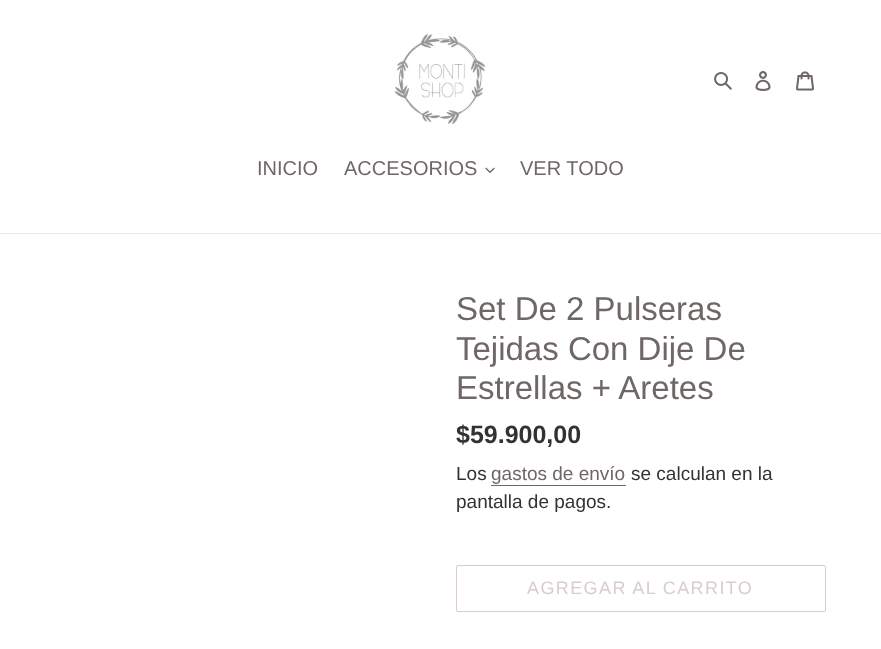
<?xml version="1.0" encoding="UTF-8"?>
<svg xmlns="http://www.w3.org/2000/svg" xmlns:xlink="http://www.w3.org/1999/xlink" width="881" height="649">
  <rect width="100%" height="100%" fill="#ffffff" />
  <image x="394" y="34" width="92" height="90" xlink:href="image1.png" />
  <image x="714" y="72" width="18" height="18" xlink:href="image2.png" />
  <image x="755" y="71" width="16" height="20" xlink:href="image3.png" />
  <image x="796" y="71" width="18" height="20" xlink:href="image4.png" />
  <rect y="233" width="881" height="1" fill="#ebebeb" />
  <image x="485" y="167" width="10" height="6" xlink:href="image5.png" />
  <rect x="491" y="485" width="135" height="1" fill="#6f6666" />
  <rect x="456.5" y="565.5" width="369" height="46" rx="1.5" fill="none" stroke="#d9cccc" />
  <text x="257" y="175" style="font-family: Liberation Sans; font-size: 20px; fill: #6f6666">INICIO</text>
  <text x="344" y="175" style="font-family: Liberation Sans; font-size: 20px; fill: #6f6666">ACCESORIOS</text>
  <text x="520" y="175" style="font-family: Liberation Sans; font-size: 20px; fill: #6f6666">VER TODO</text>
  <text x="456" y="320" style="font-family: Liberation Sans; font-size: 33px; fill: #6f6666">Set De 2 Pulseras</text>
  <text x="456" y="360" style="font-family: Liberation Sans; font-size: 33px; fill: #6f6666">Tejidas Con Dije De</text>
  <text x="456" y="399" style="font-family: Liberation Sans; font-size: 33px; fill: #6f6666">Estrellas + Aretes</text>
  <text x="456" y="443" style="font-family: Liberation Sans; font-size: 25px; font-weight: bold; fill: #333232">$59.900,00</text>
  <text x="456" y="480" style="font-family: Liberation Sans; font-size: 19px; fill: #333232">Los</text>
  <text x="491" y="480" style="font-family: Liberation Sans; font-size: 19px; fill: #6f6666">gastos de envío</text>
  <text x="631" y="480" style="font-family: Liberation Sans; font-size: 19px; fill: #333232">se calculan en la</text>
  <text x="456" y="508" style="font-family: Liberation Sans; font-size: 19px; fill: #333232">pantalla de pagos.</text>
  <text x="527" y="594" style="font-family: Liberation Sans; font-size: 18px; letter-spacing: 1.4px; fill: #d9cccc">AGREGAR AL CARRITO</text>
</svg>
